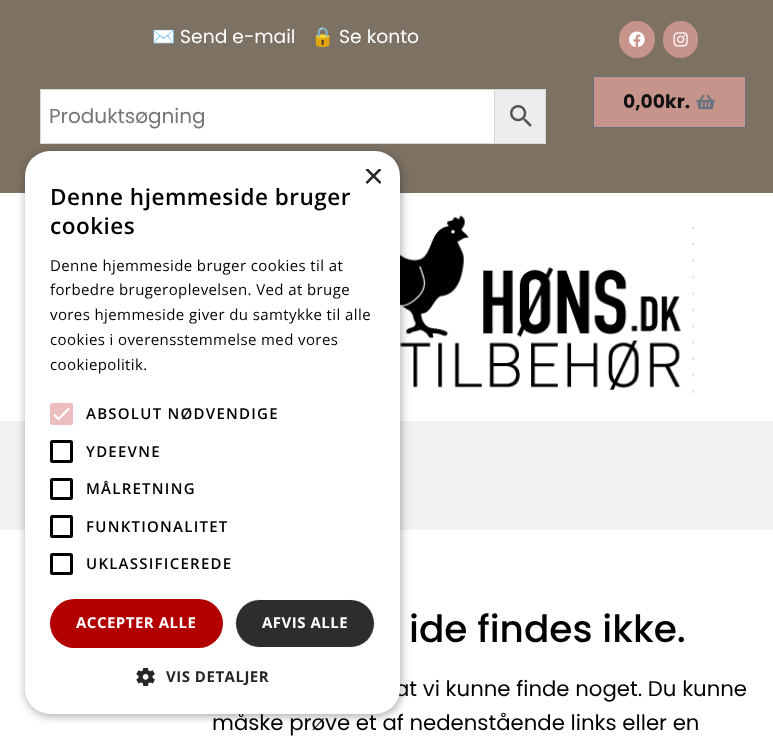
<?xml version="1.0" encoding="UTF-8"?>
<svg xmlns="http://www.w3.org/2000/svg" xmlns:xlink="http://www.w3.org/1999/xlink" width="773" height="738">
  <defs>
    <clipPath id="clip1"><rect x="363" y="169" width="18" height="19" /></clipPath>
  </defs>
  <rect width="100%" height="100%" fill="#ffffff" />
  <rect width="773" height="193" fill="#7d7164" />
  <rect x="619" y="21" width="36" height="37" rx="18" fill="#c6948b" />
  <image x="629" y="31" width="16" height="17" xlink:href="image1.png" />
  <rect x="663" y="21" width="35" height="37" rx="17.5" fill="#c6948b" />
  <image x="673" y="32" width="15" height="15" xlink:href="image2.png" />
  <rect x="593.5" y="76.5" width="152" height="51" fill="#c6948b" stroke="#69727d" />
  <image x="696" y="94" width="19" height="16" xlink:href="image3.png" />
  <rect x="494.5" y="89.5" width="51" height="54" fill="#ededed" stroke="#d8d8d8" />
  <rect x="40.5" y="89.5" width="454" height="54" fill="#ffffff" stroke="#d8d8d8" />
  <image x="510" y="105" width="22" height="22" xlink:href="image4.png" />
  <image x="400" y="215" width="294" height="178" xlink:href="image5.png" />
  <rect y="421" width="773" height="109" fill="#f1f1f1" />
  <rect x="26" y="154" width="375" height="562" rx="25" fill="#000000" fill-opacity="0.35" filter="blur(5px)" />
  <text x="152" y="43" style="font-family: Noto Color Emoji; font-size: 18.75px; fill: #ffffff">✉️</text>
  <text x="180" y="43" style="font-family: Poppins; font-size: 18.75px; fill: #ffffff">Send e-mail</text>
  <text x="311" y="43" style="font-family: Noto Color Emoji; font-size: 18.75px; fill: #ffffff">🔒</text>
  <text x="339" y="43" style="font-family: Poppins; font-size: 18.75px; fill: #ffffff">Se konto</text>
  <text x="623" y="108" style="font-family: Poppins; font-size: 18.75px; font-weight: bold; fill: #111111">0,00kr.</text>
  <text x="49" y="123" style="font-family: Poppins; font-size: 20px; fill: #757575">Produktsøgning</text>
  <text x="409" y="642" style="font-family: Poppins; font-size: 37.5px; font-weight: 500; fill: #000000">ide findes ikke.</text>
  <text x="395" y="696" style="font-family: Poppins; font-size: 21.25px; fill: #000000">at vi kunne finde noget. Du kunne</text>
  <text x="212" y="730" style="font-family: Poppins; font-size: 21.25px; fill: #000000">måske prøve et af nedenstående links eller en</text>
  <rect x="25" y="151" width="375" height="563" rx="25" fill="#ffffff" />
  <g clip-path="url(#clip1)">
    <text x="363" y="188" style="font-family: Liberation Sans; font-size: 36px; fill: #262626">×</text>
  </g>
  <image x="136" y="668" width="19" height="18" xlink:href="image6.png" />
  <text x="166" y="682" style="font-family: Open Sans; font-size: 15px; font-weight: bold; letter-spacing: 0.5px; fill: #262626">VIS DETALJER</text>
  <rect x="51.5" y="554.5" width="20" height="19" rx="1" fill="none" stroke="#000000" stroke-width="3" />
  <rect x="51.5" y="516.5" width="20" height="20" rx="1" fill="none" stroke="#000000" stroke-width="3" />
  <rect x="51.5" y="479.5" width="20" height="19" rx="1" fill="none" stroke="#000000" stroke-width="3" />
  <rect x="51.5" y="441.5" width="20" height="20" rx="1" fill="none" stroke="#000000" stroke-width="3" />
  <rect x="50" y="403" width="23" height="22" rx="2.5" fill="#ebbdbd" />
  <path d="M 54 414.5 l 4.5 4.5 l 10.5 -10.5" fill="none" stroke="#ffffff" stroke-width="2.3" />
  <rect x="235.5" y="599.5" width="139" height="48" rx="24" fill="#2d2d2d" stroke="#ffffff" />
  <text x="262" y="628" style="font-family: Open Sans; font-size: 15px; font-weight: bold; letter-spacing: 0.5px; fill: #ffffff">AFVIS ALLE</text>
  <rect x="50" y="599" width="173" height="49" rx="24.5" fill="#b20000" />
  <text x="76" y="628" style="font-family: Open Sans; font-size: 15px; font-weight: bold; letter-spacing: 0.5px; fill: #ffffff">ACCEPTER ALLE</text>
  <text x="86" y="569" style="font-family: Open Sans; font-size: 15px; font-weight: 600; letter-spacing: 1.25px; fill: #000000">UKLASSIFICEREDE</text>
  <text x="86" y="532" style="font-family: Open Sans; font-size: 15px; font-weight: 600; letter-spacing: 1.25px; fill: #000000">FUNKTIONALITET</text>
  <text x="86" y="494" style="font-family: Open Sans; font-size: 15px; font-weight: 600; letter-spacing: 1.25px; fill: #000000">MÅLRETNING</text>
  <text x="86" y="457" style="font-family: Open Sans; font-size: 15px; font-weight: 600; letter-spacing: 1.25px; fill: #000000">YDEEVNE</text>
  <text x="86" y="419" style="font-family: Open Sans; font-size: 15px; font-weight: 600; letter-spacing: 1.25px; fill: #000000">ABSOLUT NØDVENDIGE</text>
  <text x="50" y="370" style="font-family: Open Sans; font-size: 15px; letter-spacing: 0.4px; fill: #000000">cookiepolitik.</text>
  <text x="50" y="345" style="font-family: Open Sans; font-size: 15px; letter-spacing: 0.4px; fill: #000000">cookies i overensstemmelse med vores</text>
  <text x="50" y="320" style="font-family: Open Sans; font-size: 15px; letter-spacing: 0.4px; fill: #000000">vores hjemmeside giver du samtykke til alle</text>
  <text x="50" y="295" style="font-family: Open Sans; font-size: 15px; letter-spacing: 0.4px; fill: #000000">forbedre brugeroplevelsen. Ved at bruge</text>
  <text x="50" y="271" style="font-family: Open Sans; font-size: 15px; letter-spacing: 0.4px; fill: #000000">Denne hjemmeside bruger cookies til at</text>
  <text x="50" y="234" style="font-family: Open Sans; font-size: 22.5px; font-weight: 600; letter-spacing: 0.5px; fill: #000000">cookies</text>
  <text x="50" y="205" style="font-family: Open Sans; font-size: 22.5px; font-weight: 600; letter-spacing: 0.5px; fill: #000000">Denne hjemmeside bruger</text>
</svg>
